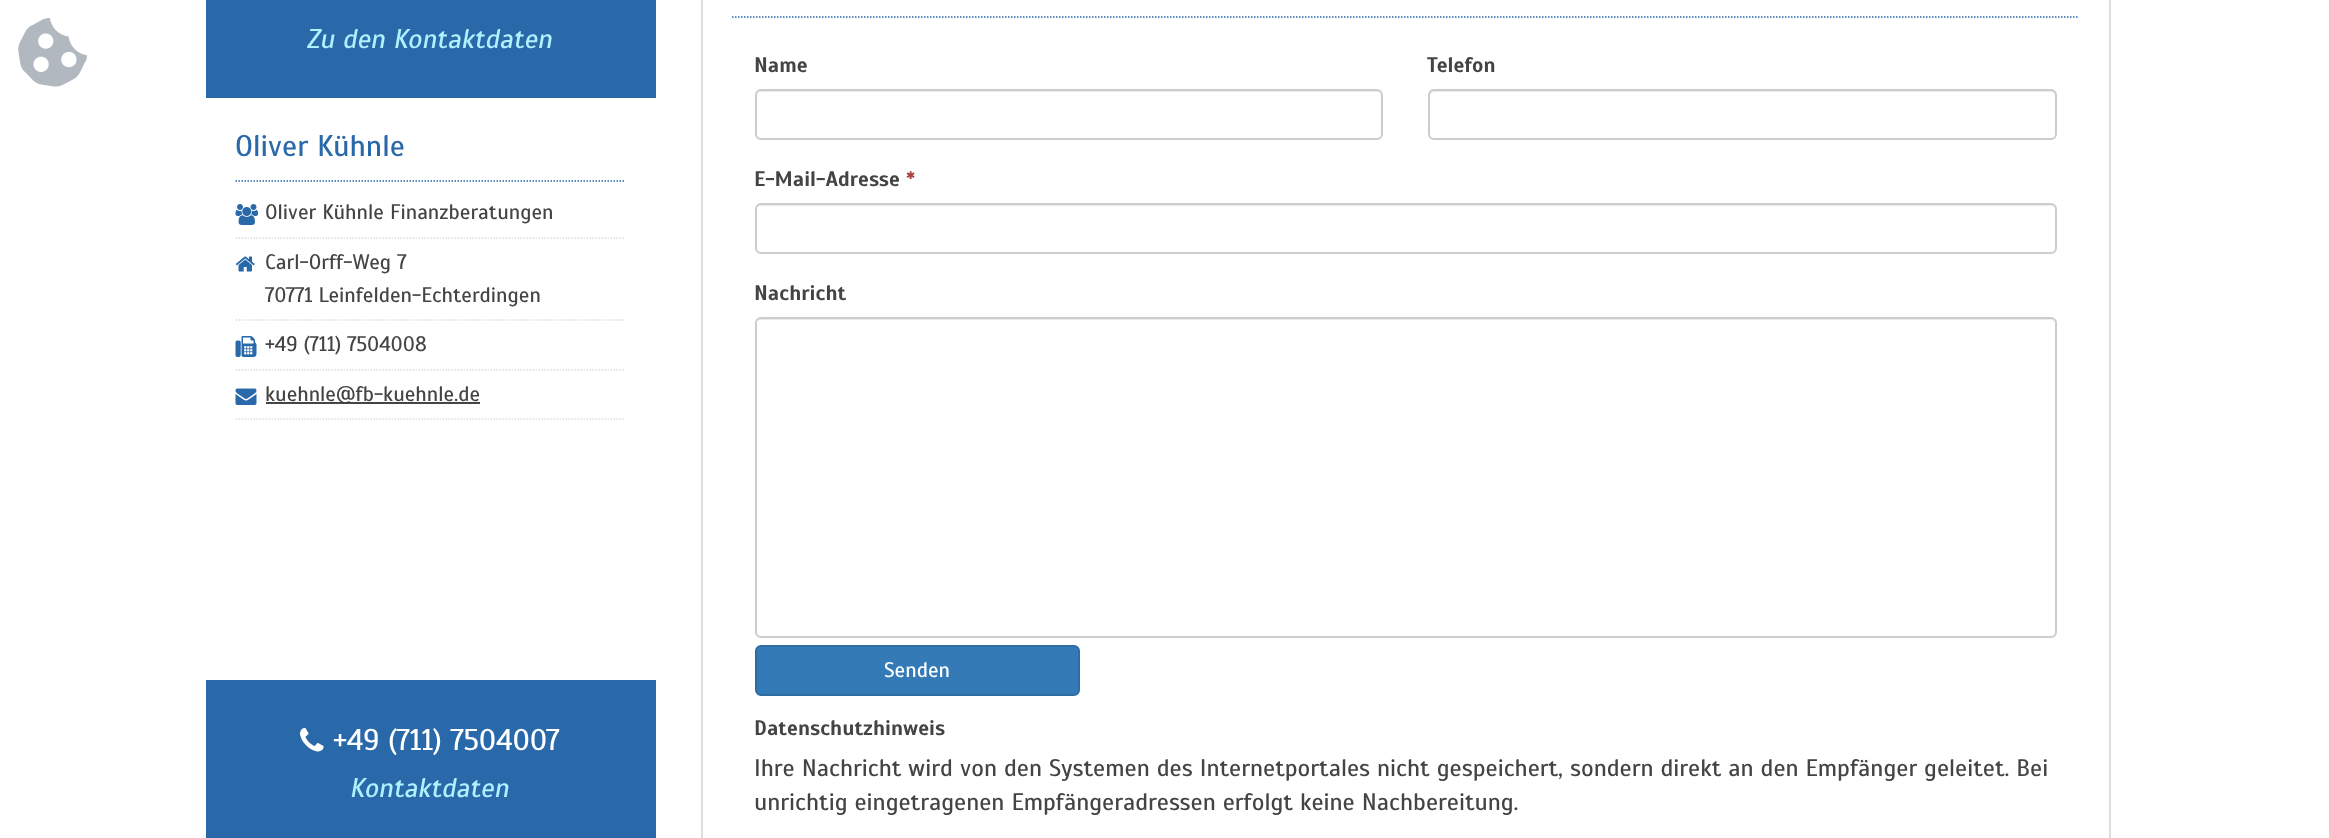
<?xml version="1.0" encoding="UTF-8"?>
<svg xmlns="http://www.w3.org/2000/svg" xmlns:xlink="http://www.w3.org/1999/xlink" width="2329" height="838">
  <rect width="100%" height="100%" fill="#ffffff" />
  <image x="18" y="18" width="69" height="69" xlink:href="image1.png" />
  <rect x="206" width="450" height="98" fill="#2969aa" />
  <path d="M 235.5 181 h 390" fill="none" stroke="#2969aa" stroke-width="1.5" stroke-dasharray="1.5 1.5" />
  <path d="M 235.5 238 h 390" fill="none" stroke="#dddddd" stroke-width="1.5" stroke-dasharray="1.5 1.5" />
  <image x="235" y="204" width="23" height="21" xlink:href="image2.png" />
  <path d="M 235.5 320 h 390" fill="none" stroke="#dddddd" stroke-width="1.5" stroke-dasharray="1.5 1.5" />
  <image x="235" y="256" width="20" height="16" xlink:href="image3.png" />
  <path d="M 235.5 370 h 390" fill="none" stroke="#dddddd" stroke-width="1.5" stroke-dasharray="1.5 1.5" />
  <image x="235" y="336" width="22" height="21" xlink:href="image4.png" />
  <path d="M 235.5 419 h 390" fill="none" stroke="#dddddd" stroke-width="1.5" stroke-dasharray="1.5 1.5" />
  <image x="235" y="388" width="22" height="17" xlink:href="image5.png" />
  <rect x="266" y="402" width="214" height="2" fill="#444444" />
  <rect x="206" y="680" width="450" height="158" fill="#2969aa" />
  <image x="300" y="728" width="24" height="24" xlink:href="image6.png" />
  <rect x="702" y="-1" width="1408" height="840" fill="none" stroke="#dddddd" stroke-width="2" />
  <path d="M 732 17 h 1347" fill="none" stroke="#2969aa" stroke-width="1.5" stroke-dasharray="1.5 1.5" />
  <path d="M 760 92 h 617 c 2 0 5 2 5 4 v -1 c 0 -3 -2 -5 -5 -5 h -616 c -3 0 -5 2 -5 5 v 1 c 0 -2 2 -4 4 -4 z" fill="#ececec" />
  <rect x="756" y="90" width="626" height="49" rx="5" fill="none" stroke="#cccccc" stroke-width="2" />
  <path d="M 1434 92 h 616 c 3 0 5 2 5 4 v -1 c 0 -3 -2 -5 -5 -5 h -615 c -3 0 -5 2 -5 5 v 1 c 0 -2 2 -4 4 -4 z" fill="#ececec" />
  <rect x="1429" y="90" width="627" height="49" rx="5" fill="none" stroke="#cccccc" stroke-width="2" />
  <path d="M 760 206 h 1290 c 3 0 5 2 5 4 c 0 -3 -2 -6 -5 -6 h -1289 c -3 0 -5 3 -5 6 c 0 -2 2 -4 4 -4 z" fill="#ececec" />
  <rect x="756" y="204" width="1300" height="49" rx="5" fill="none" stroke="#cccccc" stroke-width="2" />
  <path d="M 760 320 h 1290 c 3 0 5 2 5 4 c 0 -3 -2 -6 -5 -6 h -1289 c -3 0 -5 3 -5 6 c 0 -2 2 -4 4 -4 z" fill="#ececec" />
  <rect x="756" y="318" width="1300" height="319" rx="5" fill="none" stroke="#cccccc" stroke-width="2" />
  <rect x="756" y="646" width="323" height="49" rx="5" fill="#337ab7" stroke="#2e6da4" stroke-width="2" />
  <text x="307" y="48" style="font-family: Scada; font-size: 27px; font-style: italic; fill: #b1f1ff">Zu den Kontaktdaten</text>
  <text x="235" y="156" style="font-family: Scada; font-size: 30px; fill: #2969aa">Oliver Kühnle</text>
  <text x="265" y="219" style="font-family: Scada; font-size: 21px; fill: #444444">Oliver Kühnle Finanzberatungen</text>
  <text x="265" y="269" style="font-family: Scada; font-size: 21px; fill: #444444">Carl-Orff-Weg 7</text>
  <text x="265" y="302" style="font-family: Scada; font-size: 21px; fill: #444444">70771 Leinfelden-Echterdingen</text>
  <text x="265" y="351" style="font-family: Scada; font-size: 21px; fill: #444444">+49 (711) 7504008</text>
  <text x="265" y="401" style="font-family: Scada; font-size: 21px; fill: #444444">kuehnle@fb-kuehnle.de</text>
  <text x="333" y="750" style="font-family: Scada; font-size: 30px; fill: #ffffff">+49 (711) 7504007</text>
  <text x="350" y="797" style="font-family: Scada; font-size: 27px; font-style: italic; fill: #b1f1ff">Kontaktdaten</text>
  <text x="754" y="72" style="font-family: Scada; font-size: 21px; font-weight: bold; fill: #444444">Name</text>
  <text x="1427" y="72" style="font-family: Scada; font-size: 21px; font-weight: bold; fill: #444444">Telefon</text>
  <text x="754" y="186" style="font-family: Scada; font-size: 21px; font-weight: bold; fill: #444444">E-Mail-Adresse</text>
  <text x="906" y="186" style="font-family: Scada; font-size: 21px; font-weight: bold; fill: #a94442">*</text>
  <text x="754" y="300" style="font-family: Scada; font-size: 21px; font-weight: bold; fill: #444444">Nachricht</text>
  <text x="884" y="677" style="font-family: Scada; font-size: 21px; fill: #ffffff">Senden</text>
  <text x="754" y="735" style="font-family: Scada; font-size: 21px; font-weight: bold; fill: #444444">Datenschutzhinweis</text>
  <text x="754" y="776" style="font-family: Scada; font-size: 24px; fill: #444444">Ihre Nachricht wird von den Systemen des Internetportales nicht gespeichert, sondern direkt an den Empfänger geleitet. Bei</text>
  <text x="754" y="810" style="font-family: Scada; font-size: 24px; fill: #444444">unrichtig eingetragenen Empfängeradressen erfolgt keine Nachbereitung.</text>
</svg>
